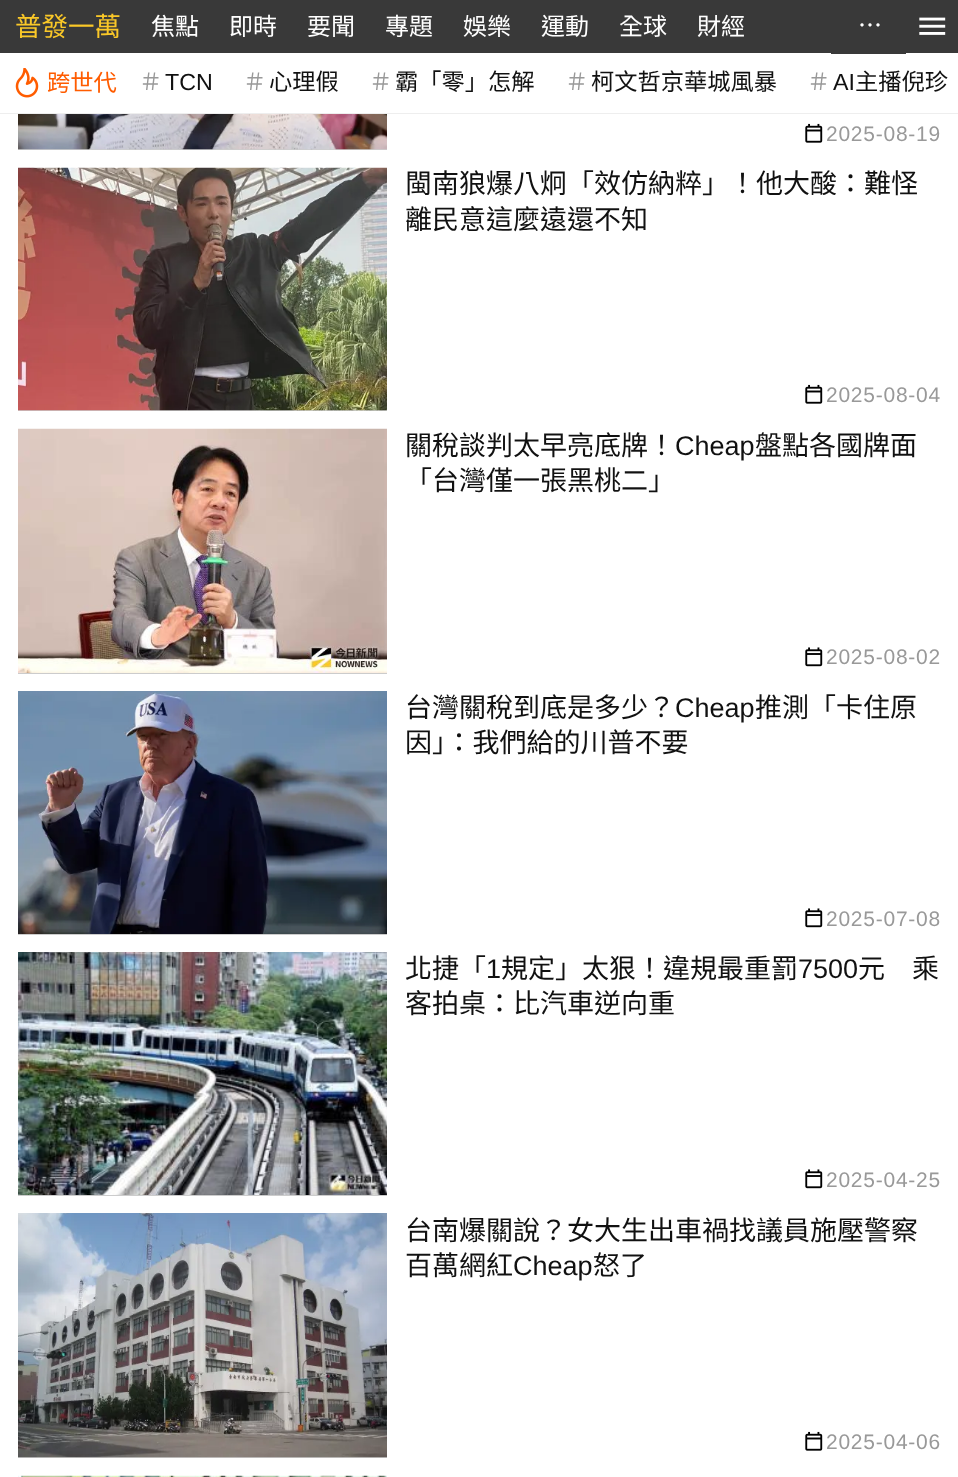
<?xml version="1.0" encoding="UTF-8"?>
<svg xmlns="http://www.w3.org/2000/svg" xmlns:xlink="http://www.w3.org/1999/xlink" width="958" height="1477">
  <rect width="100%" height="100%" fill="#ffffff" />
  <rect width="958" height="53" fill="#393939" />
  <rect x="831" y="53" width="75" height="1" fill="#393939" />
  <image x="919" y="17" width="27" height="18" xlink:href="image1.png" />
  <path d="M 0 112 v 2 h 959 v -60 h -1 v 58 z" fill="#eeeeee" />
  <rect y="112" width="958" height="1" fill="#ffffff" />
  <image x="15" y="68" width="24" height="30" xlink:href="image2.png" />
  <rect x="18" y="149" width="369" height="1" fill="#cccccc" />
  <image x="18" y="114" width="369" height="36" xlink:href="image3.png" />
  <image x="805" y="123" width="18" height="20" xlink:href="image4.png" />
  <rect x="18" y="410" width="369" height="1" fill="#cccccc" />
  <image x="18" y="167" width="369" height="244" xlink:href="image5.png" />
  <image x="805" y="384" width="18" height="20" xlink:href="image4.png" />
  <rect x="18" y="673" width="369" height="1" fill="#cccccc" />
  <image x="18" y="428" width="369" height="245" xlink:href="image6.png" />
  <image x="805" y="647" width="18" height="20" xlink:href="image7.png" />
  <rect x="18" y="934" width="369" height="1" fill="#cccccc" />
  <image x="18" y="691" width="369" height="243" xlink:href="image8.png" />
  <image x="805" y="908" width="18" height="20" xlink:href="image7.png" />
  <rect x="18" y="1195" width="369" height="1" fill="#cccccc" />
  <image x="18" y="952" width="369" height="243" xlink:href="image9.png" />
  <image x="805" y="1169" width="18" height="20" xlink:href="image7.png" />
  <rect x="18" y="1457" width="369" height="1" fill="#cccccc" />
  <image x="18" y="1213" width="369" height="245" xlink:href="image10.png" />
  <image x="805" y="1431" width="18" height="20" xlink:href="image4.png" />
  <image x="18" y="1475" width="369" height="2" xlink:href="image11.png" />
  <text x="15" y="36" style="font-family: Noto Sans CJK TC; font-size: 26.5px; fill: #fac828">普發一萬</text>
  <text x="151" y="35" style="font-family: Noto Sans CJK TC; font-size: 24px; fill: #ffffff">焦點</text>
  <text x="229" y="35" style="font-family: Noto Sans CJK TC; font-size: 24px; fill: #ffffff">即時</text>
  <text x="307" y="35" style="font-family: Noto Sans CJK TC; font-size: 24px; fill: #ffffff">要聞</text>
  <text x="385" y="35" style="font-family: Noto Sans CJK TC; font-size: 24px; fill: #ffffff">專題</text>
  <text x="463" y="35" style="font-family: Noto Sans CJK TC; font-size: 24px; fill: #ffffff">娛樂</text>
  <text x="541" y="35" style="font-family: Noto Sans CJK TC; font-size: 24px; fill: #ffffff">運動</text>
  <text x="619" y="35" style="font-family: Noto Sans CJK TC; font-size: 24px; fill: #ffffff">全球</text>
  <text x="697" y="35" style="font-family: Noto Sans CJK TC; font-size: 24px; fill: #ffffff">財經</text>
  <text x="858" y="34" style="font-family: Noto Sans CJK TC; font-size: 24px; fill: #ffffff">⋯</text>
  <text x="47" y="91" style="font-family: Noto Sans CJK TC; font-size: 23.25px; fill: #ff5c00">跨世代</text>
  <text x="139" y="90" style="font-family: Noto Sans CJK TC; font-size: 23.25px; fill: #999999">＃</text>
  <text x="165" y="90" style="font-family: Liberation Sans; font-size: 23.25px; fill: #111111">TCN</text>
  <text x="243" y="90" style="font-family: Noto Sans CJK TC; font-size: 23.25px; fill: #999999">＃</text>
  <text x="269" y="90" style="font-family: Noto Sans CJK TC; font-size: 23.25px; fill: #111111">心理假</text>
  <text x="369" y="90" style="font-family: Noto Sans CJK TC; font-size: 23.25px; fill: #999999">＃</text>
  <text x="395" y="90" style="font-family: Noto Sans CJK TC; font-size: 23.25px; fill: #111111">霸「零」怎解</text>
  <text x="565" y="90" style="font-family: Noto Sans CJK TC; font-size: 23.25px; fill: #999999">＃</text>
  <text x="591" y="90" style="font-family: Noto Sans CJK TC; font-size: 23.25px; fill: #111111">柯文哲京華城風暴</text>
  <text x="807" y="90" style="font-family: Noto Sans CJK TC; font-size: 23.25px; fill: #999999">＃</text>
  <text x="833" y="90" style="font-family: Liberation Sans; font-size: 23.25px; fill: #111111">AI</text>
  <text x="855" y="90" style="font-family: Noto Sans CJK TC; font-size: 23.25px; fill: #111111">主播倪珍</text>
  <text x="826" y="141" style="font-family: Liberation Sans; font-size: 21px; letter-spacing: 0.75px; fill: #999999">2025-08-19</text>
  <text x="405" y="193" style="font-family: Noto Sans CJK TC; font-size: 27px; fill: #111111">閩南狼爆八炯「效仿納粹」！他大酸：難怪</text>
  <text x="405" y="229" style="font-family: Noto Sans CJK TC; font-size: 27px; fill: #111111">離民意這麼遠還不知</text>
  <text x="826" y="402" style="font-family: Liberation Sans; font-size: 21px; letter-spacing: 0.75px; fill: #999999">2025-08-04</text>
  <text x="405" y="455" style="font-family: Noto Sans CJK TC; font-size: 27px; fill: #111111">關稅談判太早亮底牌！</text>
  <text x="675" y="455" style="font-family: Liberation Sans; font-size: 27px; fill: #111111">Cheap</text>
  <text x="755" y="455" style="font-family: Noto Sans CJK TC; font-size: 27px; fill: #111111">盤點各國牌面</text>
  <text x="405" y="490" style="font-family: Noto Sans CJK TC; font-size: 27px; fill: #111111">「台灣僅一張黑桃二」</text>
  <text x="826" y="664" style="font-family: Liberation Sans; font-size: 21px; letter-spacing: 0.75px; fill: #999999">2025-08-02</text>
  <text x="405" y="717" style="font-family: Noto Sans CJK TC; font-size: 27px; fill: #111111">台灣關稅到底是多少？</text>
  <text x="675" y="717" style="font-family: Liberation Sans; font-size: 27px; fill: #111111">Cheap</text>
  <text x="755" y="717" style="font-family: Noto Sans CJK TC; font-size: 27px; fill: #111111">推測「卡住原</text>
  <text x="405" y="752" style="font-family: Noto Sans CJK TC; font-size: 27px; fill: #111111">因」：我們給的川普不要</text>
  <text x="826" y="926" style="font-family: Liberation Sans; font-size: 21px; letter-spacing: 0.75px; fill: #999999">2025-07-08</text>
  <text x="405" y="978" style="font-family: Noto Sans CJK TC; font-size: 27px; fill: #111111">北捷「</text>
  <text x="486" y="978" style="font-family: Liberation Sans; font-size: 27px; fill: #111111">1</text>
  <text x="501" y="978" style="font-family: Noto Sans CJK TC; font-size: 27px; fill: #111111">規定」太狠！違規最重罰</text>
  <text x="798" y="978" style="font-family: Liberation Sans; font-size: 27px; fill: #111111">7500</text>
  <text x="858" y="978" style="font-family: Noto Sans CJK TC; font-size: 27px; fill: #111111">元　乘</text>
  <text x="405" y="1013" style="font-family: Noto Sans CJK TC; font-size: 27px; fill: #111111">客拍桌：比汽車逆向重</text>
  <text x="826" y="1187" style="font-family: Liberation Sans; font-size: 21px; letter-spacing: 0.75px; fill: #999999">2025-04-25</text>
  <text x="405" y="1240" style="font-family: Noto Sans CJK TC; font-size: 27px; fill: #111111">台南爆關說？女大生出車禍找議員施壓警察</text>
  <text x="405" y="1275" style="font-family: Noto Sans CJK TC; font-size: 27px; fill: #111111">百萬網紅</text>
  <text x="513" y="1275" style="font-family: Liberation Sans; font-size: 27px; fill: #111111">Cheap</text>
  <text x="593" y="1275" style="font-family: Noto Sans CJK TC; font-size: 27px; fill: #111111">怒了</text>
  <text x="826" y="1449" style="font-family: Liberation Sans; font-size: 21px; letter-spacing: 0.75px; fill: #999999">2025-04-06</text>
</svg>
